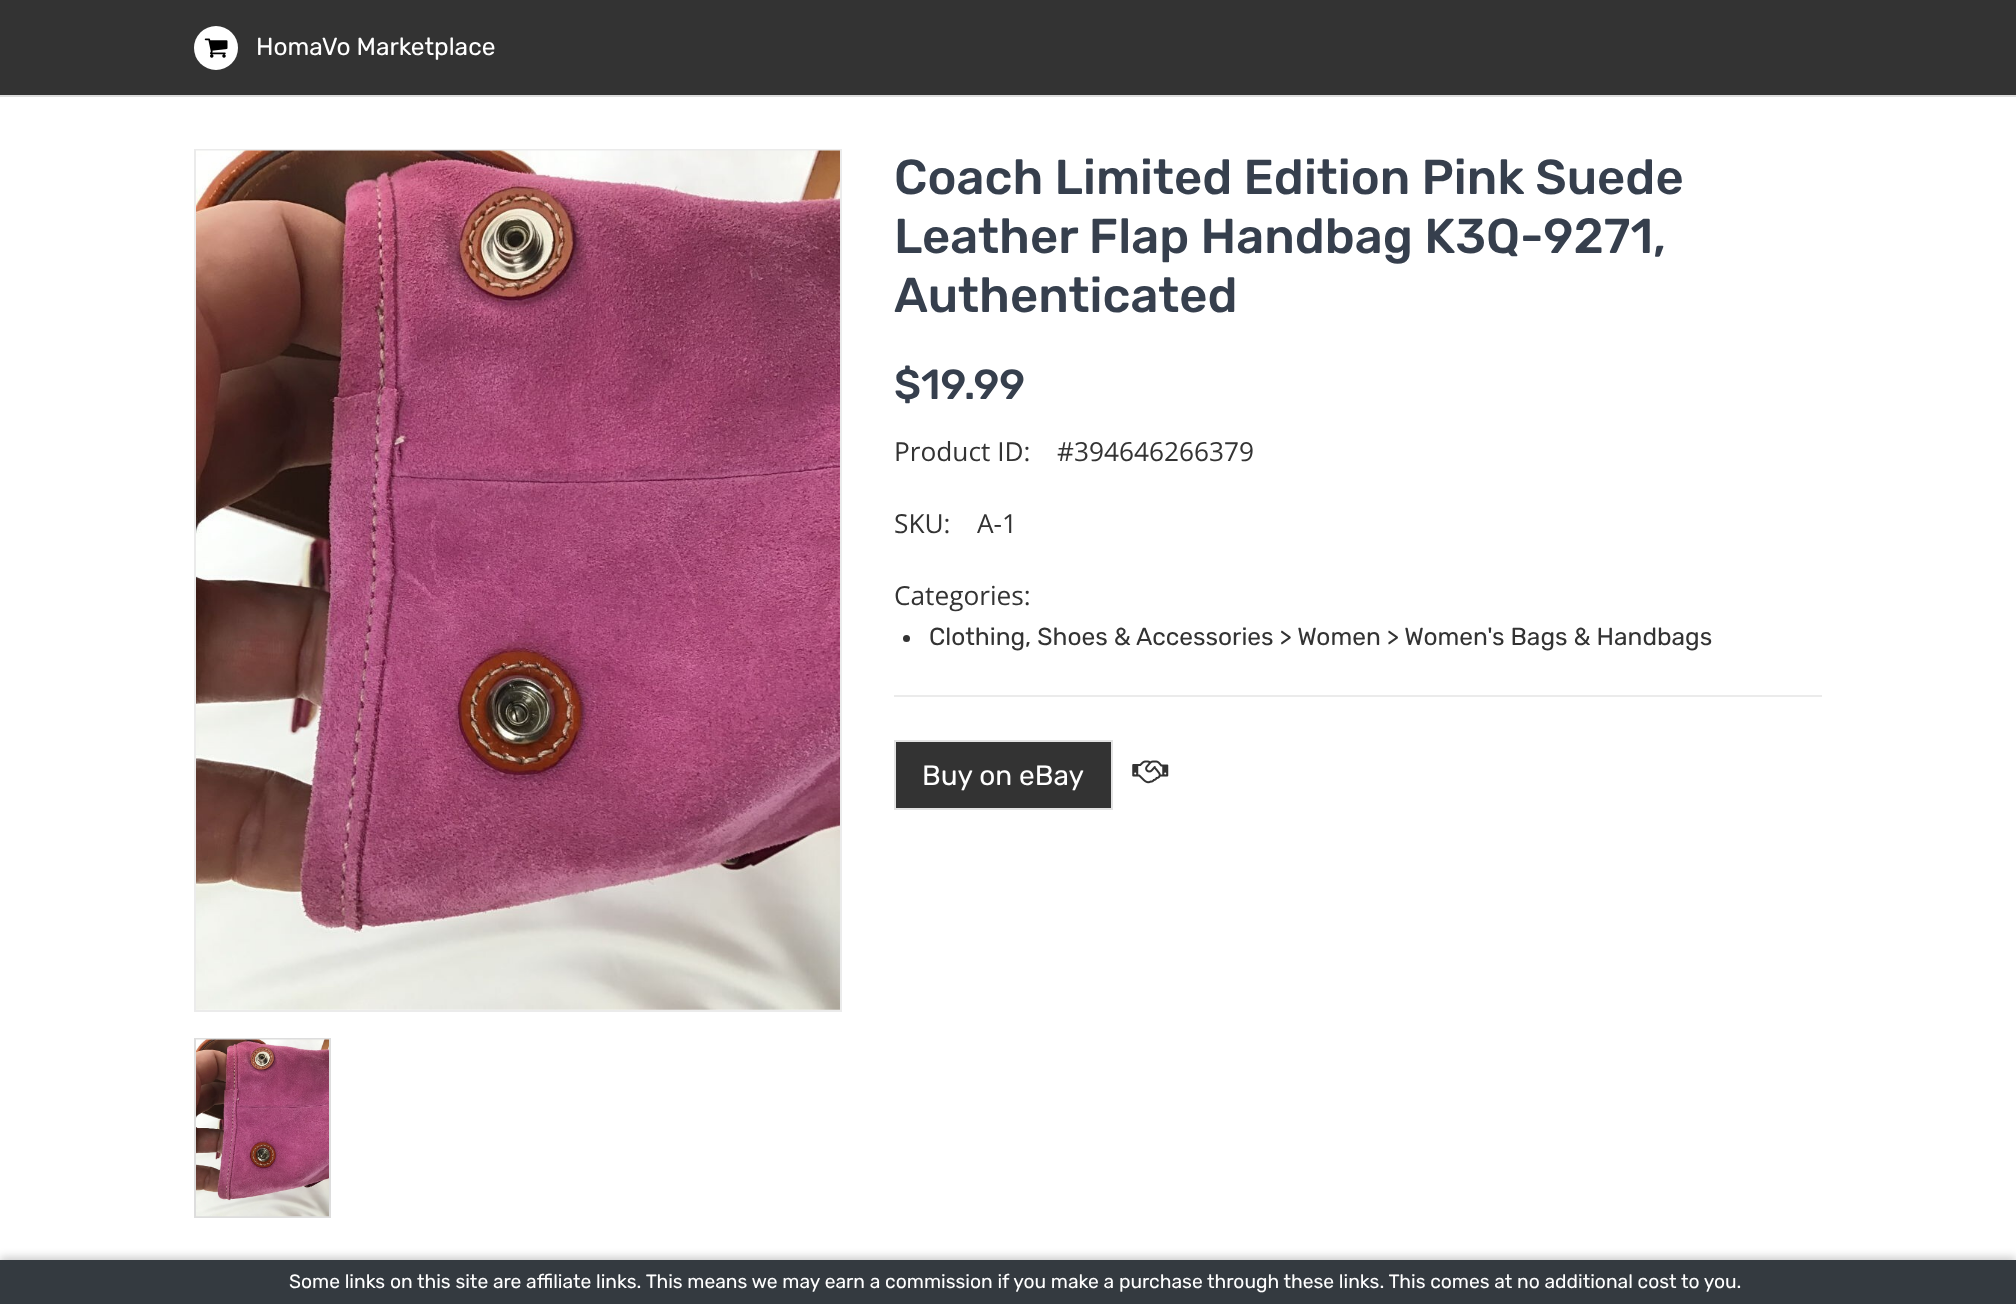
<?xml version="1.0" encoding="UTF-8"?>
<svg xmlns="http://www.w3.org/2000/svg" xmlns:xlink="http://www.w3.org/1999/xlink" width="2016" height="1304">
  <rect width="100%" height="100%" fill="#ffffff" />
  <rect width="2016" height="95" fill="#333333" />
  <rect y="95" width="2016" height="2" fill="#dddddd" />
  <circle cx="216" cy="48" r="22" fill="#ffffff" />
  <image x="204" y="38" width="24" height="20" xlink:href="image1.png" />
  <rect x="195" y="150" width="646" height="861" fill="none" stroke="#ebebeb" stroke-width="2" />
  <image x="196" y="150" width="644" height="860" xlink:href="image2.png" />
  <rect x="195" y="1039" width="135" height="178" fill="none" stroke="#dddddd" stroke-width="2" />
  <image x="196" y="1039" width="133" height="178" xlink:href="image3.png" />
  <circle cx="906.5" cy="638.5" r="3.5" fill="#333333" />
  <rect x="894" y="695" width="928" height="2" fill="#ebebeb" />
  <rect x="895" y="741" width="217" height="68" fill="#333333" stroke="#e3e3e3" stroke-width="2" />
  <image x="1132" y="760" width="37" height="24" xlink:href="image4.png" />
  <rect y="1257" width="2016" height="45" fill="#000000" fill-opacity="0.2" filter="blur(4.5px)" />
  <rect y="1260" width="2016" height="44" fill="#343a40" />
  <text x="256" y="55" style="font-family: Rubik; font-size: 24.5px; fill: #ffffff">HomaVo Marketplace</text>
  <text x="894" y="194" style="font-family: Rubik; font-size: 49px; font-weight: 500; fill: #363f4d">Coach Limited Edition Pink Suede</text>
  <text x="894" y="253" style="font-family: Rubik; font-size: 49px; font-weight: 500; fill: #363f4d">Leather Flap Handbag K3Q-9271,</text>
  <text x="894" y="312" style="font-family: Rubik; font-size: 49px; font-weight: 500; fill: #363f4d">Authenticated</text>
  <text x="894" y="399" style="font-family: Rubik; font-size: 42px; font-weight: 500; fill: #363f4d">$19.99</text>
  <text x="894" y="461" style="font-family: Open Sans; font-size: 26.25px; fill: #333333">Product ID:</text>
  <text x="1057" y="461" style="font-family: Open Sans; font-size: 26.25px; fill: #333333">#394646266379</text>
  <text x="894" y="533" style="font-family: Open Sans; font-size: 26.25px; fill: #333333">SKU:</text>
  <text x="977" y="533" style="font-family: Open Sans; font-size: 26.25px; fill: #333333">A-1</text>
  <text x="894" y="605" style="font-family: Open Sans; font-size: 26.25px; fill: #333333">Categories:</text>
  <text x="929" y="645" style="font-family: Rubik; font-size: 24.5px; fill: #333333">Clothing, Shoes &amp; Accessories &gt; Women &gt; Women's Bags &amp; Handbags</text>
  <text x="922" y="785" style="font-family: Rubik; font-size: 28px; fill: #ffffff">Buy on eBay</text>
  <text x="289" y="1288" style="font-family: Rubik; font-size: 19.25px; fill: #ffffff">Some links on this site are affiliate links. This means we may earn a commission if you make a purchase through these links. This comes at no additional cost to you.</text>
</svg>
